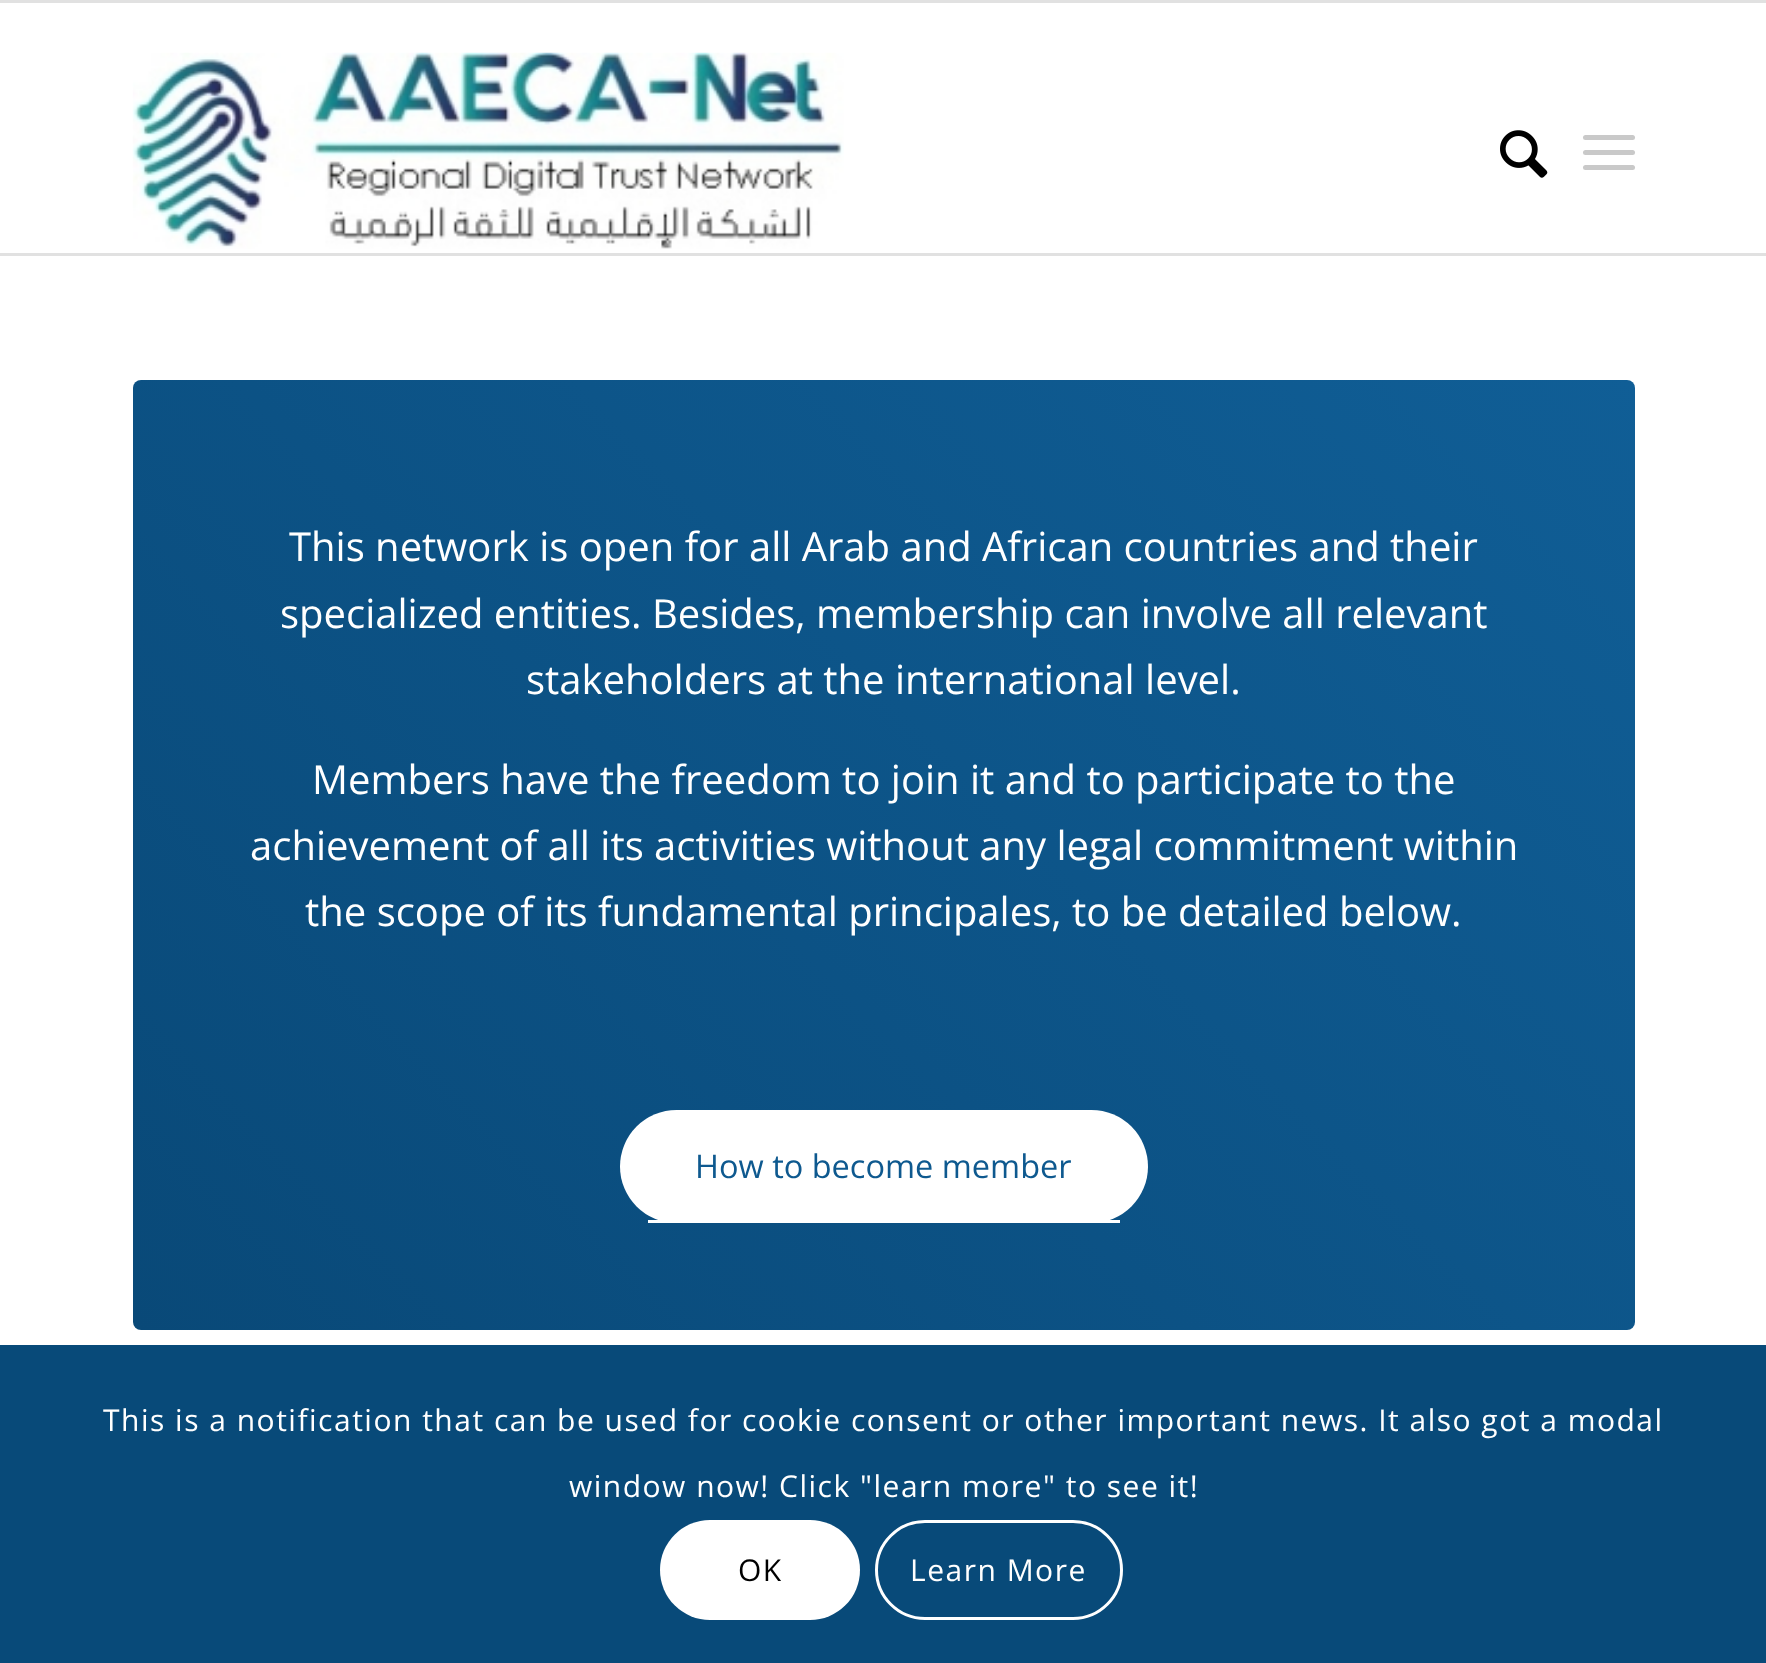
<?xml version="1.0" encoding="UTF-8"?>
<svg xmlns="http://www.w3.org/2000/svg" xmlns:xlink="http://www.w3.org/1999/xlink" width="1766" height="1663">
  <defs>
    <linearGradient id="g1" gradientUnits="userSpaceOnUse" x1="271" y1="1468" x2="1497" y2="242"><stop offset="0" stop-color="#094978" /><stop offset="1" stop-color="#105e96" /></linearGradient>
  </defs>
  <rect width="100%" height="100%" fill="#ffffff" />
  <rect width="1766" height="3" fill="#e1e1e1" />
  <rect y="253" width="1766" height="3" fill="#e1e1e1" />
  <image x="132" y="52" width="712" height="197" xlink:href="image1.png" />
  <image x="1500" y="130" width="48" height="48" xlink:href="image2.png" />
  <rect x="1583" y="150" width="52" height="5" rx="2.5" fill="#c9c9c9" />
  <rect x="1583" y="135" width="52" height="5" rx="2.5" fill="#c9c9c9" />
  <rect x="1583" y="165" width="52" height="5" rx="2.5" fill="#c9c9c9" />
  <rect x="133" y="380" width="1502" height="950" rx="8" fill="url(#g1)" />
  <rect x="620" y="1110" width="528" height="113" rx="56.5" fill="#ffffff" />
  <rect x="648" y="1220" width="472" height="3" fill="#ffffff" />
  <rect y="1345" width="1766" height="318" fill="#084a79" />
  <rect x="660" y="1520" width="200" height="100" rx="50" fill="#ffffff" />
  <rect x="876.5" y="1521.5" width="245" height="97" rx="48.5" fill="none" stroke="#ffffff" stroke-width="3" />
  <text x="289" y="561" style="font-family: Open Sans; font-size: 40px; fill: #ffffff">This network is open for all Arab and African countries and their</text>
  <text x="280" y="628" style="font-family: Open Sans; font-size: 40px; fill: #ffffff">specialized entities. Besides, membership can involve all relevant</text>
  <text x="526" y="694" style="font-family: Open Sans; font-size: 40px; fill: #ffffff">stakeholders at the international level.</text>
  <text x="312" y="794" style="font-family: Open Sans; font-size: 40px; fill: #ffffff">Members have the freedom to join it and to participate to the</text>
  <text x="250" y="860" style="font-family: Open Sans; font-size: 40px; fill: #ffffff">achievement of all its activities without any legal commitment within</text>
  <text x="305" y="926" style="font-family: Open Sans; font-size: 40px; fill: #ffffff">the scope of its fundamental principales, to be detailed below.</text>
  <text x="695" y="1178" style="font-family: Open Sans; font-size: 32.5px; fill: #0e598f">How to become member</text>
  <text x="103" y="1431" style="font-family: Open Sans; font-size: 30px; letter-spacing: 1.5px; fill: #ffffff">This is a notification that can be used for cookie consent or other important news. It also got a modal</text>
  <text x="569" y="1497" style="font-family: Open Sans; font-size: 30px; letter-spacing: 1.5px; fill: #ffffff">window now! Click "learn more" to see it!</text>
  <text x="738" y="1581" style="font-family: Open Sans; font-size: 30px; letter-spacing: 1.5px; fill: #000000">OK</text>
  <text x="910" y="1581" style="font-family: Open Sans; font-size: 30px; letter-spacing: 1.5px; fill: #ffffff">Learn More</text>
</svg>
